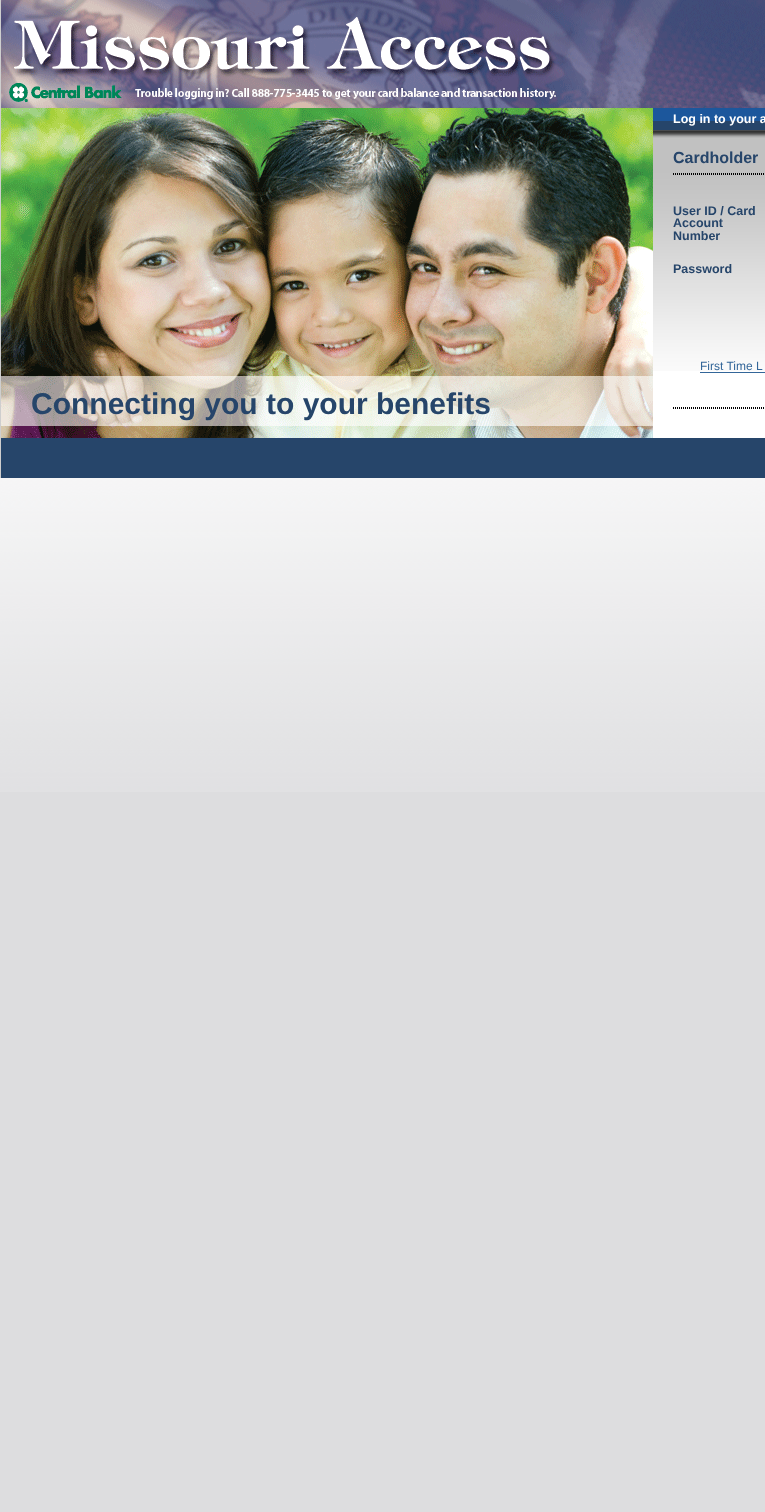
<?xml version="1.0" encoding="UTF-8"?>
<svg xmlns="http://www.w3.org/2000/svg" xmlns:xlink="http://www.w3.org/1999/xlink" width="765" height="1512">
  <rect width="100%" height="100%" fill="#dddddf" />
  <image x="0" y="478" width="765" height="314" xlink:href="image1.png" />
  <rect x="653" y="371" width="112" height="67" fill="#ffffff" />
  <rect width="1" height="478" fill="#cecece" />
  <image x="1" y="0" width="764" height="108" xlink:href="image2.png" />
  <image x="653" y="130" width="112" height="241" xlink:href="image3.png" />
  <image x="653" y="108" width="112" height="22" xlink:href="image4.png" />
  <path d="M 673 173.5 h 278" fill="none" stroke="#000000" stroke-dasharray="1 1" />
  <path d="M 673 174.5 h 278" fill="none" stroke="#000000" stroke-dasharray="1 1" />
  <rect x="700" y="372" width="65" height="1" fill="#336699" />
  <path d="M 673 407.5 h 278" fill="none" stroke="#000000" stroke-dasharray="1 1" />
  <path d="M 673 408.5 h 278" fill="none" stroke="#000000" stroke-dasharray="1 1" />
  <image x="1" y="108" width="652" height="330" xlink:href="image5.png" />
  <rect x="1" y="438" width="764" height="40" fill="#26456a" />
  <text x="673" y="123" style="font-family: Liberation Sans; font-size: 12.5px; font-weight: bold; fill: #ffffff">Log in to your a</text>
  <text x="673" y="163" style="font-family: Liberation Sans; font-size: 16px; font-weight: bold; fill: #26456a">Cardholder</text>
  <text x="673" y="215" style="font-family: Liberation Sans; font-size: 12.5px; font-weight: bold; fill: #26456a">User ID / Card</text>
  <text x="673" y="227" style="font-family: Liberation Sans; font-size: 12.5px; font-weight: bold; fill: #26456a">Account</text>
  <text x="673" y="240" style="font-family: Liberation Sans; font-size: 12.5px; font-weight: bold; fill: #26456a">Number</text>
  <text x="673" y="273" style="font-family: Liberation Sans; font-size: 12.5px; font-weight: bold; fill: #26456a">Password</text>
  <text x="700" y="370" style="font-family: Liberation Sans; font-size: 12px; fill: #336699">First Time L</text>
  <text x="31" y="414" style="font-family: Liberation Sans; font-size: 30px; font-weight: bold; fill: #26456a">Connecting you to your benefits</text>
</svg>
